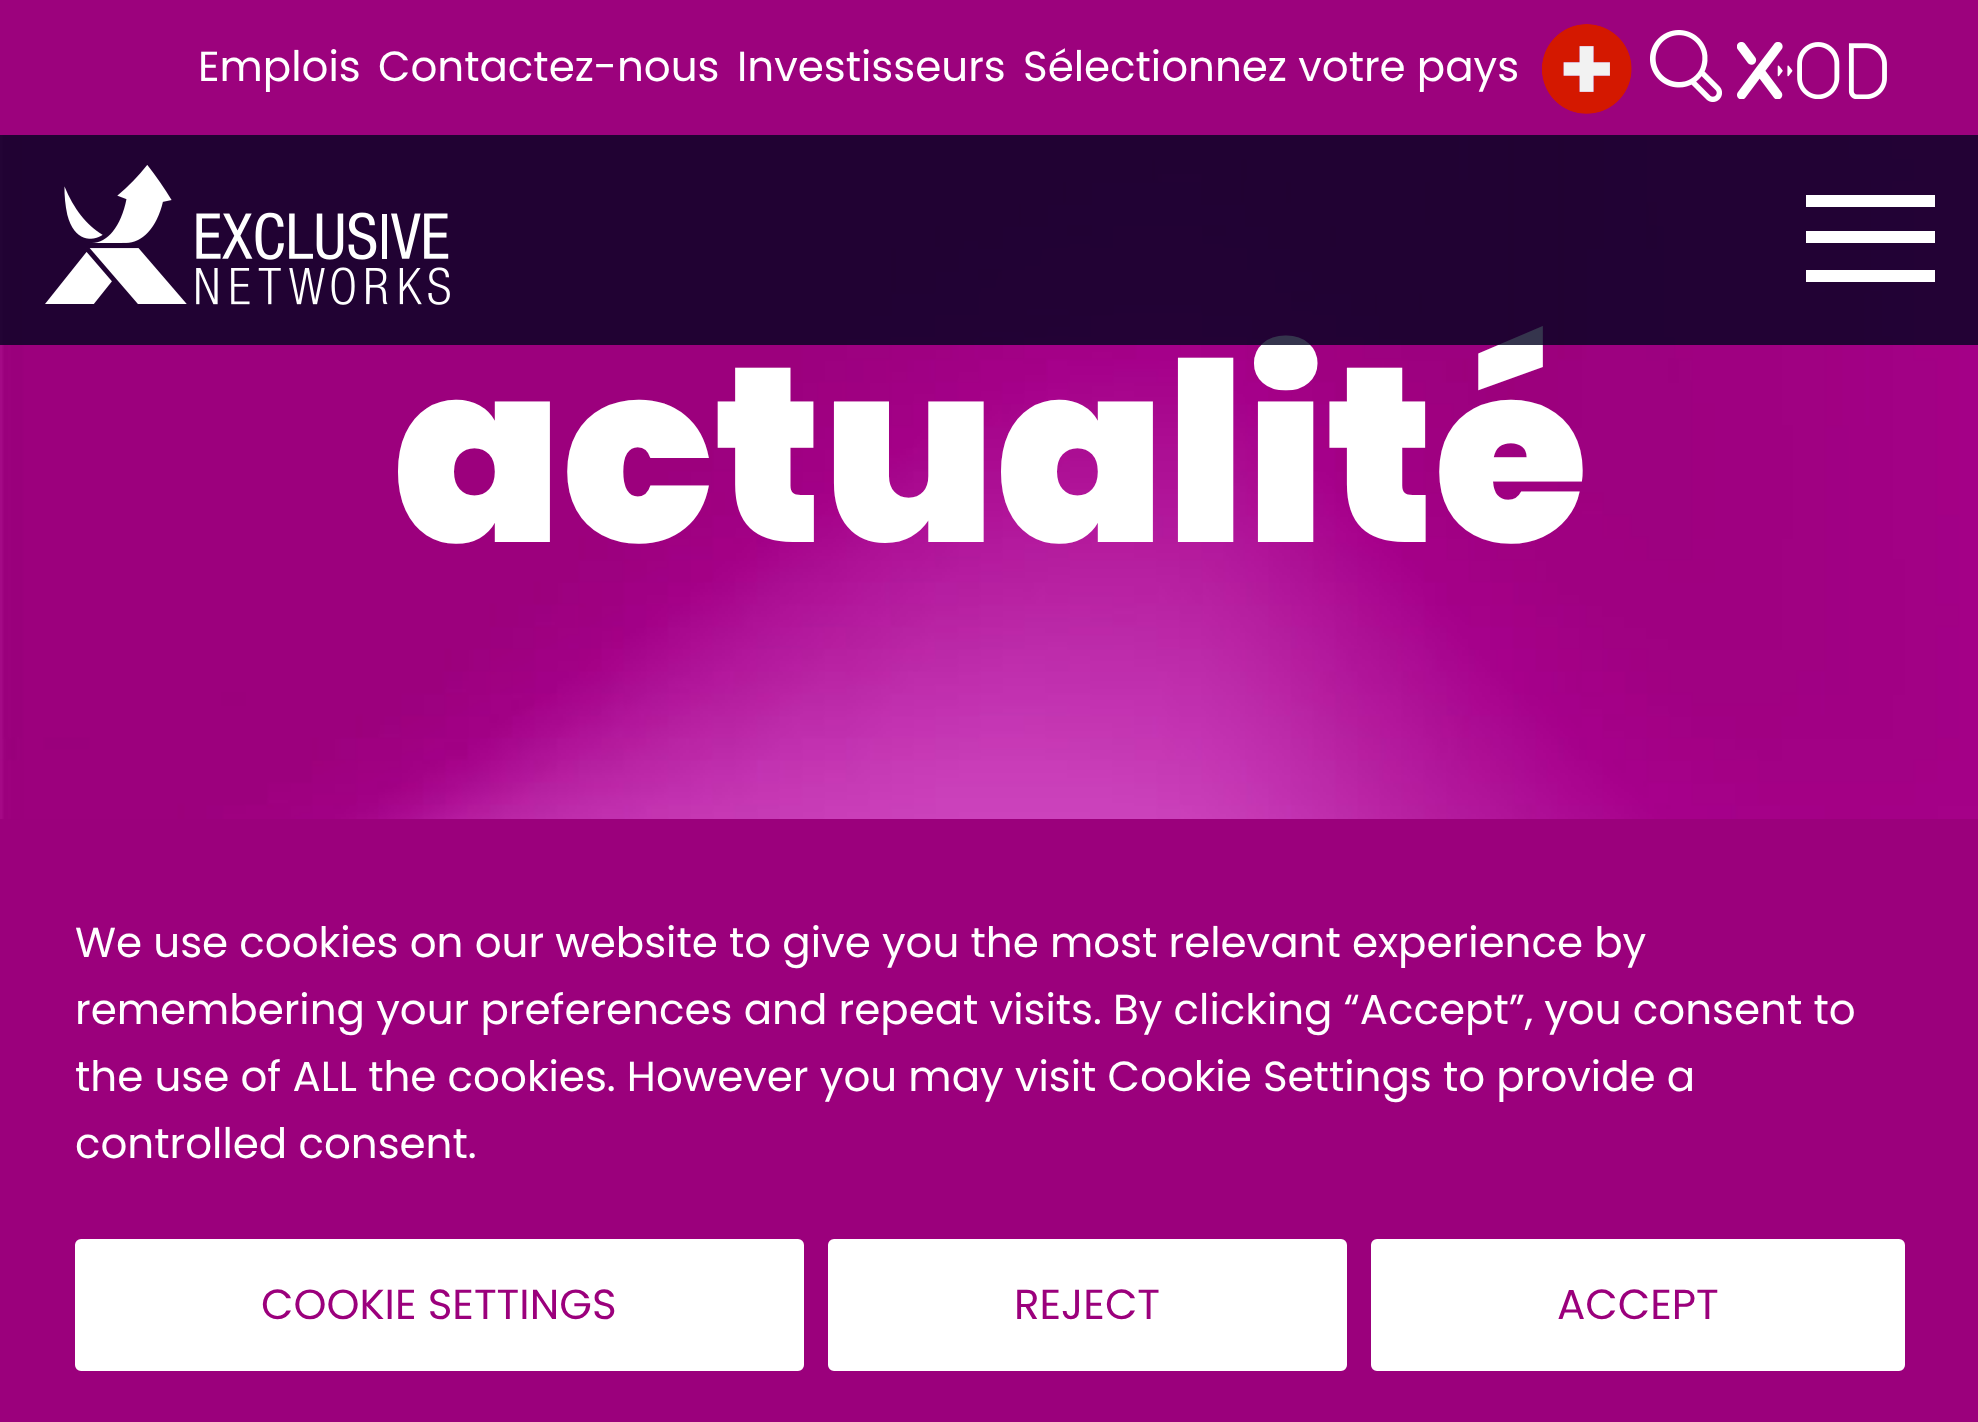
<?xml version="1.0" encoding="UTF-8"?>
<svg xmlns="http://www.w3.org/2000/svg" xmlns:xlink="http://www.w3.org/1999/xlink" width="1978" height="1422">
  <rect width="100%" height="100%" fill="#ffffff" />
  <rect width="1978" height="135" fill="#9c027d" />
  <image x="1542" y="24" width="90" height="90" xlink:href="image1.png" />
  <image x="1650" y="30" width="72" height="72" xlink:href="image2.png" />
  <image x="1737" y="42" width="150" height="57" xlink:href="image3.png" />
  <image x="0" y="135" width="1978" height="684" xlink:href="image5.png" />
  <rect y="819" width="1978" height="603" fill="#9b007c" />
  <rect x="78" y="1242" width="723" height="126" rx="3" fill="#ffffff" stroke="#ffffff" stroke-width="6" />
  <rect x="831" y="1242" width="513" height="126" rx="3" fill="#ffffff" stroke="#ffffff" stroke-width="6" />
  <rect x="1374" y="1242" width="528" height="126" rx="3" fill="#ffffff" stroke="#ffffff" stroke-width="6" />
  <text x="198" y="81" style="font-family: Poppins; font-size: 42px; fill: #ffffff">Emplois</text>
  <text x="378" y="81" style="font-family: Poppins; font-size: 42px; fill: #ffffff">Contactez-nous</text>
  <text x="737" y="81" style="font-family: Poppins; font-size: 42px; fill: #ffffff">Investisseurs</text>
  <text x="1023" y="81" style="font-family: Poppins; font-size: 42px; fill: #ffffff">Sélectionnez votre pays</text>
  <text x="393" y="542" style="font-family: Poppins; font-size: 249px; font-weight: 900; fill: #ffffff">actualité</text>
  <rect y="135" width="1978" height="210" fill="#030221" fill-opacity="0.8" />
  <rect x="1806" y="195" width="129" height="12" fill="#ffffff" />
  <rect x="1806" y="231" width="129" height="12" fill="#ffffff" />
  <rect x="1806" y="270" width="129" height="12" fill="#ffffff" />
  <image x="45" y="165" width="405" height="140" xlink:href="image4.png" />
  <text x="75" y="957" style="font-family: Poppins; font-size: 42px; fill: #ffffff">We use cookies on our website to give you the most relevant experience by</text>
  <text x="75" y="1024" style="font-family: Poppins; font-size: 42px; fill: #ffffff">remembering your preferences and repeat visits. By clicking “Accept”, you consent to</text>
  <text x="75" y="1091" style="font-family: Poppins; font-size: 42px; fill: #ffffff">the use of ALL the cookies. However you may visit Cookie Settings to provide a</text>
  <text x="75" y="1158" style="font-family: Poppins; font-size: 42px; fill: #ffffff">controlled consent.</text>
  <text x="261" y="1319" style="font-family: Poppins; font-size: 42px; fill: #9b007c">COOKIE SETTINGS</text>
  <text x="1014" y="1319" style="font-family: Poppins; font-size: 42px; fill: #9b007c">REJECT</text>
  <text x="1557" y="1319" style="font-family: Poppins; font-size: 42px; fill: #9b007c">ACCEPT</text>
</svg>
